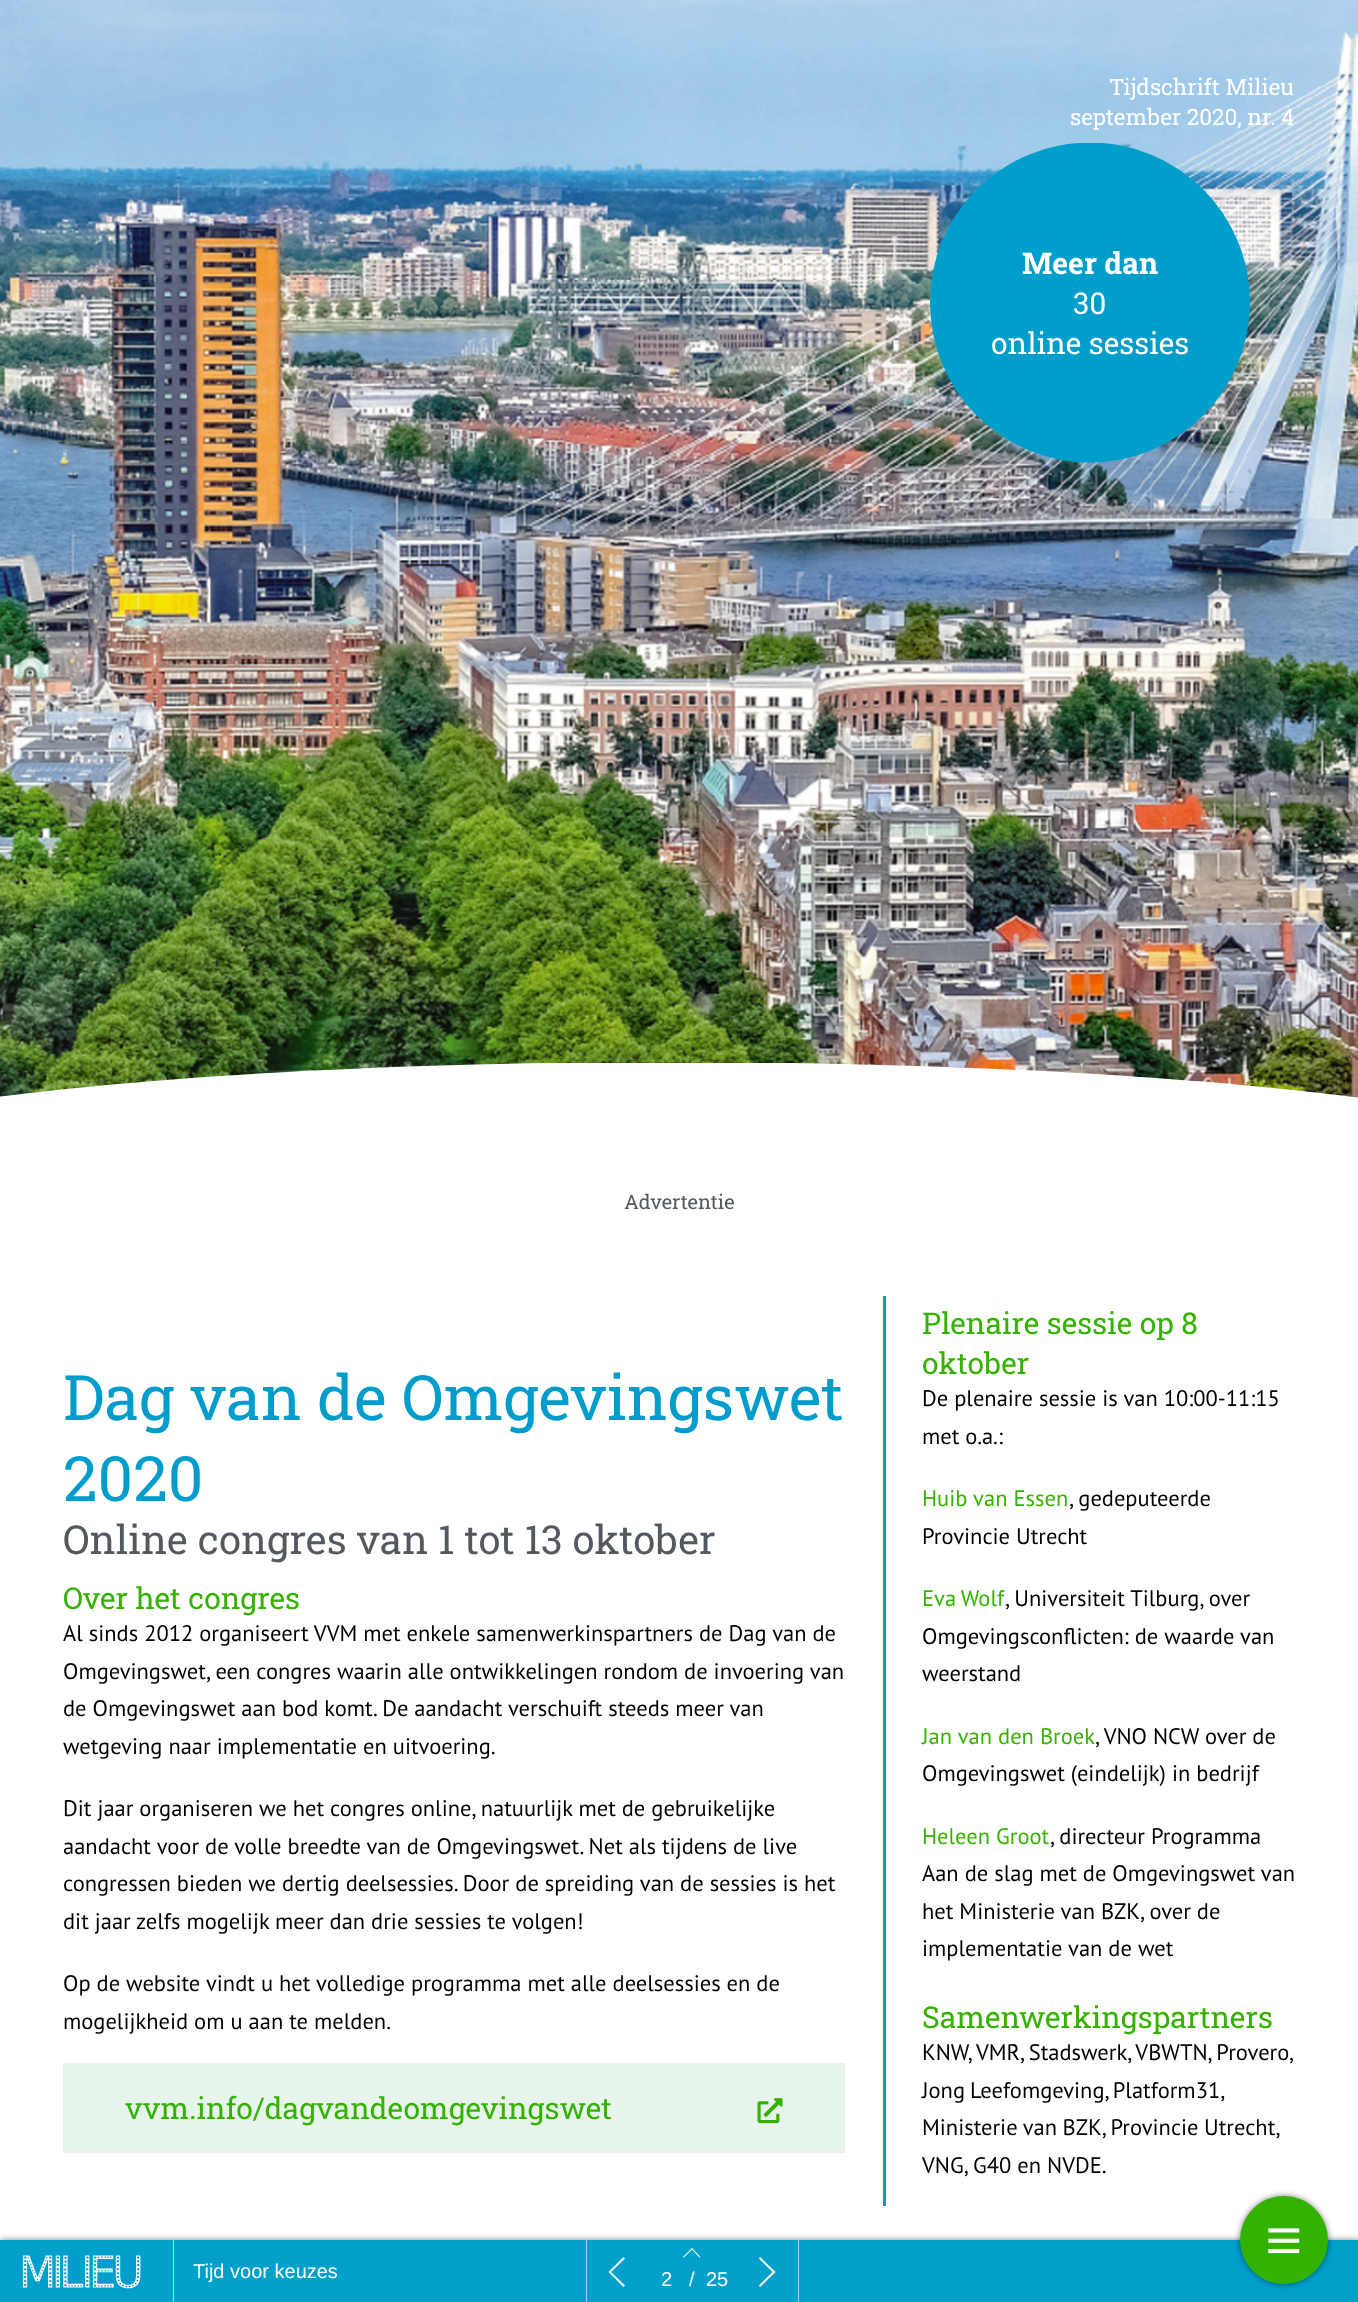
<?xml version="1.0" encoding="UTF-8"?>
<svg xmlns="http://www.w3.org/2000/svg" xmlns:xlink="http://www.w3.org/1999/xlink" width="1358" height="2302">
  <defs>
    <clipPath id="clip1"><rect x="930" y="143" width="320" height="320" /></clipPath>
    <clipPath id="clip2"><rect y="1063" width="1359" height="125" /></clipPath>
  </defs>
  <rect width="100%" height="100%" fill="#ffffff" />
  <image x="0" y="0" width="1358" height="1098" xlink:href="image1.png" />
  <g clip-path="url(#clip1)">
    <circle cx="1090" cy="302.5" r="160" fill="#009fcb" />
  </g>
  <g clip-path="url(#clip2)">
    <path d="M -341 1182 v 6 h 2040 v -6 c -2 -23 -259 -118 -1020 -120 c -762 0 -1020 97 -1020 120 z" fill="#ffffff" />
  </g>
  <rect x="883" y="1296" width="3" height="910" fill="#009dcc" />
  <rect x="63" y="2063" width="782" height="90" fill="#e6f4eb" />
  <image x="757" y="2098" width="26" height="26" xlink:href="image2.png" />
  <rect y="2240" width="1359" height="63" fill="#000000" fill-opacity="0.5" filter="blur(3px)" />
  <rect y="2240" width="1358" height="62" fill="#00a0cb" />
  <image x="22" y="2255" width="119" height="34" xlink:href="image3.png" />
  <rect x="173" y="2240" width="1" height="62" fill="#99d9ea" />
  <rect x="586" y="2240" width="1" height="62" fill="#99d9ea" />
  <path d="M 611 2272 l 14 13.5 l -1.5 1.5 l -15 -15 l 15 -15 l 1.5 1.5 z" fill="#ffffff" />
  <path d="M 700.5 2257 l -1 0.5 l -7.5 -8 l -8 8 l -1 -0.5 l 9 -9 z" fill="#ffffff" />
  <rect x="798" y="2240" width="1" height="62" fill="#99d9ea" />
  <path d="M 775.5 2272 l -15.5 15 l -1 -1.5 l 13.5 -13.5 l -13.5 -13.5 l 1 -1.5 z" fill="#ffffff" />
  <rect x="1240" y="2196" width="88" height="88" rx="44" fill="#000000" fill-opacity="0.5" filter="blur(3px)" />
  <circle cx="1284" cy="2240" r="44" fill="#34b200" />
  <image x="1268" y="2228" width="32" height="26" xlink:href="image4.png" />
  <text x="1109" y="95" style="font-family: Roboto Slab; font-size: 22.5px; fill: #ffffff">Tijdschrift Milieu</text>
  <text x="1070" y="125" style="font-family: Roboto Slab; font-size: 22.5px; fill: #ffffff">september 2020, nr. 4</text>
  <text x="1022" y="274" style="font-family: Roboto Slab; font-size: 30px; font-weight: bold; fill: #ffffff">Meer dan</text>
  <text x="1073" y="314" style="font-family: Roboto Slab; font-size: 30px; fill: #ffffff">30</text>
  <text x="991" y="354" style="font-family: Roboto Slab; font-size: 30px; fill: #ffffff">online sessies</text>
  <text x="624" y="1209" style="font-family: Roboto Slab; font-size: 20px; fill: #54595f">Advertentie</text>
  <text x="63" y="1420" style="font-family: Roboto Slab; font-size: 62.5px; fill: #009dcc">Dag van de Omgevingswet</text>
  <text x="63" y="1501" style="font-family: Roboto Slab; font-size: 62.5px; fill: #009dcc">2020</text>
  <text x="63" y="1554" style="font-family: Roboto Slab; font-size: 40px; fill: #54595f">Online congres van 1 tot 13 oktober</text>
  <text x="63" y="1609" style="font-family: Roboto Slab; font-size: 30px; fill: #34b200">Over het congres</text>
  <text x="63" y="1641" style="font-family: PT Sans; font-size: 22.5px; fill: #000000">Al sinds 2012 organiseert VVM met enkele samenwerkinspartners de Dag van de</text>
  <text x="63" y="1679" style="font-family: PT Sans; font-size: 22.5px; fill: #000000">Omgevingswet, een congres waarin alle ontwikkelingen rondom de invoering van</text>
  <text x="63" y="1716" style="font-family: PT Sans; font-size: 22.5px; fill: #000000">de Omgevingswet aan bod komt. De aandacht verschuift steeds meer van</text>
  <text x="63" y="1754" style="font-family: PT Sans; font-size: 22.5px; fill: #000000">wetgeving naar implementatie en uitvoering.</text>
  <text x="63" y="1816" style="font-family: PT Sans; font-size: 22.5px; fill: #000000">Dit jaar organiseren we het congres online, natuurlijk met de gebruikelijke</text>
  <text x="63" y="1854" style="font-family: PT Sans; font-size: 22.5px; fill: #000000">aandacht voor de volle breedte van de Omgevingswet. Net als tijdens de live</text>
  <text x="63" y="1891" style="font-family: PT Sans; font-size: 22.5px; fill: #000000">congressen bieden we dertig deelsessies. Door de spreiding van de sessies is het</text>
  <text x="63" y="1929" style="font-family: PT Sans; font-size: 22.5px; fill: #000000">dit jaar zelfs mogelijk meer dan drie sessies te volgen!</text>
  <text x="63" y="1991" style="font-family: PT Sans; font-size: 22.5px; fill: #000000">Op de website vindt u het volledige programma met alle deelsessies en de</text>
  <text x="63" y="2029" style="font-family: PT Sans; font-size: 22.5px; fill: #000000">mogelijkheid om u aan te melden.</text>
  <text x="125" y="2119" style="font-family: Roboto Slab; font-size: 30px; fill: #34b200">vvm.info/dagvandeomgevingswet</text>
  <text x="922" y="1334" style="font-family: Roboto Slab; font-size: 30px; fill: #34b200">Plenaire sessie op 8</text>
  <text x="922" y="1374" style="font-family: Roboto Slab; font-size: 30px; fill: #34b200">oktober</text>
  <text x="922" y="1406" style="font-family: PT Sans; font-size: 22.5px; fill: #000000">De plenaire sessie is van 10:00-11:15</text>
  <text x="922" y="1444" style="font-family: PT Sans; font-size: 22.5px; fill: #000000">met o.a.:</text>
  <text x="922" y="1506" style="font-family: PT Sans; font-size: 22.5px; fill: #34b200">Huib van Essen</text>
  <text x="1069" y="1506" style="font-family: PT Sans; font-size: 22.5px; fill: #000000">, gedeputeerde</text>
  <text x="922" y="1544" style="font-family: PT Sans; font-size: 22.5px; fill: #000000">Provincie Utrecht</text>
  <text x="922" y="1606" word-spacing="-1" style="font-family: PT Sans; font-size: 22.5px; fill: #34b200">Eva Wolf</text>
  <text x="1005" y="1606" style="font-family: PT Sans; font-size: 22.5px; fill: #000000">, Universiteit Tilburg, over</text>
  <text x="922" y="1644" style="font-family: PT Sans; font-size: 22.5px; fill: #000000">Omgevingsconflicten: de waarde van</text>
  <text x="922" y="1681" style="font-family: PT Sans; font-size: 22.5px; fill: #000000">weerstand</text>
  <text x="922" y="1744" style="font-family: PT Sans; font-size: 22.5px; fill: #34b200">Jan van den Broek</text>
  <text x="1095" y="1744" style="font-family: PT Sans; font-size: 22.5px; fill: #000000">, VNO NCW over de</text>
  <text x="922" y="1781" style="font-family: PT Sans; font-size: 22.5px; fill: #000000">Omgevingswet (eindelijk) in bedrijf</text>
  <text x="922" y="1844" style="font-family: PT Sans; font-size: 22.5px; fill: #34b200">Heleen Groot</text>
  <text x="1050" y="1844" style="font-family: PT Sans; font-size: 22.5px; fill: #000000">, directeur Programma</text>
  <text x="922" y="1881" style="font-family: PT Sans; font-size: 22.5px; fill: #000000">Aan de slag met de Omgevingswet van</text>
  <text x="922" y="1919" style="font-family: PT Sans; font-size: 22.5px; fill: #000000">het Ministerie van BZK, over de</text>
  <text x="922" y="1956" style="font-family: PT Sans; font-size: 22.5px; fill: #000000">implementatie van de wet</text>
  <text x="922" y="2028" style="font-family: Roboto Slab; font-size: 30px; fill: #34b200">Samenwerkingspartners</text>
  <text x="922" y="2060" word-spacing="-0.5" style="font-family: PT Sans; font-size: 22.5px; fill: #000000">KNW, VMR, Stadswerk, VBWTN, Provero,</text>
  <text x="922" y="2098" word-spacing="-1" style="font-family: PT Sans; font-size: 22.5px; fill: #000000">Jong Leefomgeving, Platform31,</text>
  <text x="922" y="2135" word-spacing="-0.5" style="font-family: PT Sans; font-size: 22.5px; fill: #000000">Ministerie van BZK, Provincie Utrecht,</text>
  <text x="922" y="2173" style="font-family: PT Sans; font-size: 22.5px; fill: #000000">VNG, G40 en NVDE.</text>
  <text x="193" y="2278" style="font-family: Liberation Sans; font-size: 20px; fill: #ffffff">Tijd voor keuzes</text>
  <text x="661" y="2286" style="font-family: Liberation Sans; font-size: 20px; fill: #ffffff">2</text>
  <text x="689" y="2286" style="font-family: Liberation Sans; font-size: 20px; fill: #ffffff">/</text>
  <text x="706" y="2286" style="font-family: Liberation Sans; font-size: 20px; fill: #ffffff">25</text>
</svg>
